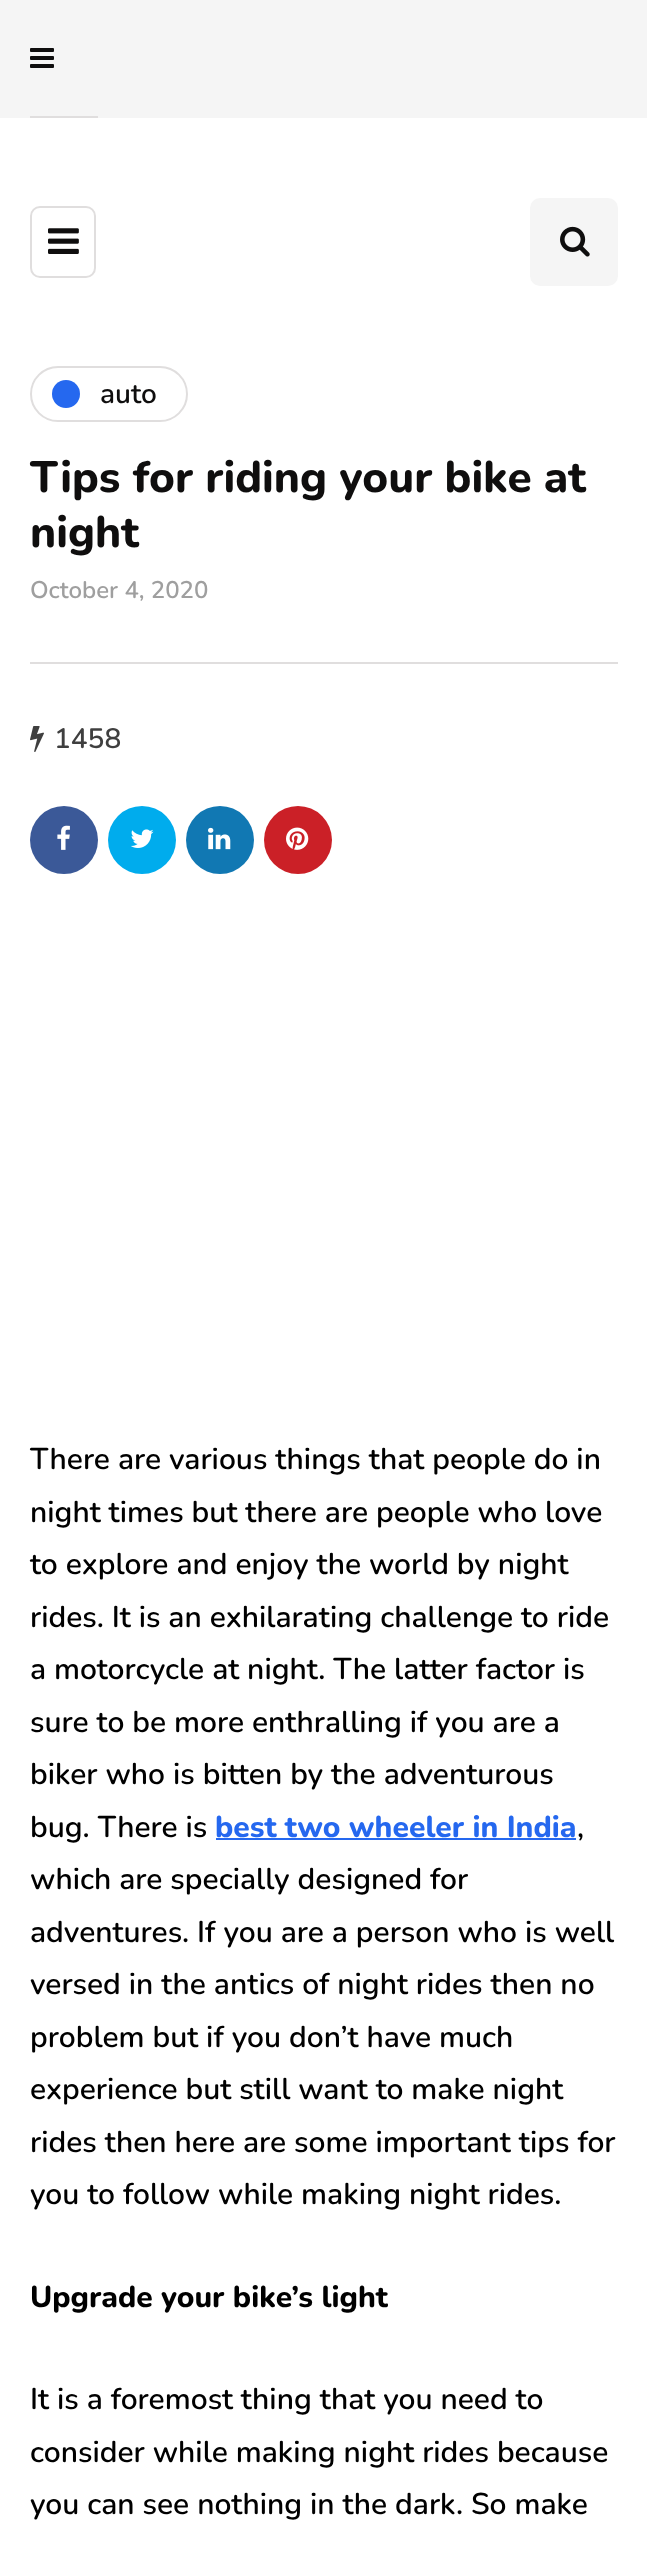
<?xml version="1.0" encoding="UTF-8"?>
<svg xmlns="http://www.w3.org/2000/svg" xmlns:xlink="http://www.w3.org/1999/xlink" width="647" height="2551">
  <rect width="100%" height="100%" fill="#ffffff" />
  <rect width="647" height="118" fill="#f5f5f5" />
  <rect x="30" y="116" width="68" height="2" fill="#e0dede" />
  <image x="30" y="48" width="24" height="20" xlink:href="image1.png" />
  <rect x="31" y="207" width="64" height="70" rx="9" fill="none" stroke="#e0dede" stroke-width="2" />
  <image x="48" y="228" width="31" height="26" xlink:href="image2.png" />
  <rect x="530" y="198" width="88" height="88" rx="10" fill="#f5f5f5" />
  <image x="560" y="226" width="30" height="31" xlink:href="image3.png" />
  <rect x="31" y="367" width="156" height="54" rx="27" fill="none" stroke="#e0dede" stroke-width="2" />
  <circle cx="66" cy="394" r="14" fill="#2568ef" />
  <rect x="30" y="662" width="588" height="2" fill="#e0dede" />
  <image x="30" y="726" width="14" height="26" xlink:href="image4.png" />
  <circle cx="64" cy="840" r="34" fill="#3b5998" />
  <image x="57" y="825" width="13" height="25" xlink:href="image5.png" />
  <circle cx="142" cy="840" r="34" fill="#00aced" />
  <image x="130" y="829" width="24" height="19" xlink:href="image6.png" />
  <circle cx="220" cy="840" r="34" fill="#1178b3" />
  <image x="208" y="827" width="23" height="23" xlink:href="image7.png" />
  <circle cx="298" cy="840" r="34" fill="#cb2027" />
  <image x="286" y="827" width="23" height="23" xlink:href="image8.png" />
  <rect x="216" y="1838" width="360" height="2" fill="#2568ef" />
  <text x="100" y="403" style="font-family: Nunito; font-size: 28px; font-weight: 600; fill: #0f0e0e">auto</text>
  <text x="30" y="492" style="font-family: Nunito; font-size: 44px; font-weight: 800; fill: #0f0e0e">Tips for riding your bike at</text>
  <text x="30" y="547" style="font-family: Nunito; font-size: 44px; font-weight: 800; fill: #0f0e0e">night</text>
  <text x="30" y="598" style="font-family: Nunito; font-size: 24px; font-weight: 600; fill: #9f9f9f">October 4, 2020</text>
  <text x="54" y="748" style="font-family: Nunito; font-size: 28px; font-weight: 600; fill: #3f3f3f">1458</text>
  <text x="30" y="1469" style="font-family: Nunito; font-size: 30px; font-weight: 600; fill: #000000">There are various things that people do in</text>
  <text x="30" y="1522" style="font-family: Nunito; font-size: 30px; font-weight: 600; fill: #000000">night times but there are people who love</text>
  <text x="30" y="1574" style="font-family: Nunito; font-size: 30px; font-weight: 600; fill: #000000">to explore and enjoy the world by night</text>
  <text x="30" y="1627" style="font-family: Nunito; font-size: 30px; font-weight: 600; fill: #000000">rides. It is an exhilarating challenge to ride</text>
  <text x="30" y="1679" style="font-family: Nunito; font-size: 30px; font-weight: 600; fill: #000000">a motorcycle at night. The latter factor is</text>
  <text x="30" y="1732" style="font-family: Nunito; font-size: 30px; font-weight: 600; fill: #000000">sure to be more enthralling if you are a</text>
  <text x="30" y="1784" style="font-family: Nunito; font-size: 30px; font-weight: 600; fill: #000000">biker who is bitten by the adventurous</text>
  <text x="30" y="1837" style="font-family: Nunito; font-size: 30px; font-weight: 600; fill: #000000">bug. There is</text>
  <text x="215" y="1837" style="font-family: Nunito; font-size: 30px; font-weight: 800; fill: #2568ef">best two wheeler in India</text>
  <text x="577" y="1837" style="font-family: Nunito; font-size: 30px; font-weight: 600; fill: #000000">,</text>
  <text x="30" y="1889" style="font-family: Nunito; font-size: 30px; font-weight: 600; fill: #000000">which are specially designed for</text>
  <text x="30" y="1942" style="font-family: Nunito; font-size: 30px; font-weight: 600; fill: #000000">adventures. If you are a person who is well</text>
  <text x="30" y="1994" style="font-family: Nunito; font-size: 30px; font-weight: 600; fill: #000000">versed in the antics of night rides then no</text>
  <text x="30" y="2047" style="font-family: Nunito; font-size: 30px; font-weight: 600; fill: #000000">problem but if you don’t have much</text>
  <text x="30" y="2099" style="font-family: Nunito; font-size: 30px; font-weight: 600; fill: #000000">experience but still want to make night</text>
  <text x="30" y="2152" style="font-family: Nunito; font-size: 30px; font-weight: 600; fill: #000000">rides then here are some important tips for</text>
  <text x="30" y="2204" style="font-family: Nunito; font-size: 30px; font-weight: 600; fill: #000000">you to follow while making night rides.</text>
  <text x="30" y="2307" style="font-family: Nunito; font-size: 30px; font-weight: 800; fill: #000000">Upgrade your bike’s light</text>
  <text x="30" y="2409" style="font-family: Nunito; font-size: 30px; font-weight: 600; fill: #000000">It is a foremost thing that you need to</text>
  <text x="30" y="2462" style="font-family: Nunito; font-size: 30px; font-weight: 600; fill: #000000">consider while making night rides because</text>
  <text x="30" y="2514" style="font-family: Nunito; font-size: 30px; font-weight: 600; fill: #000000">you can see nothing in the dark. So make</text>
</svg>
